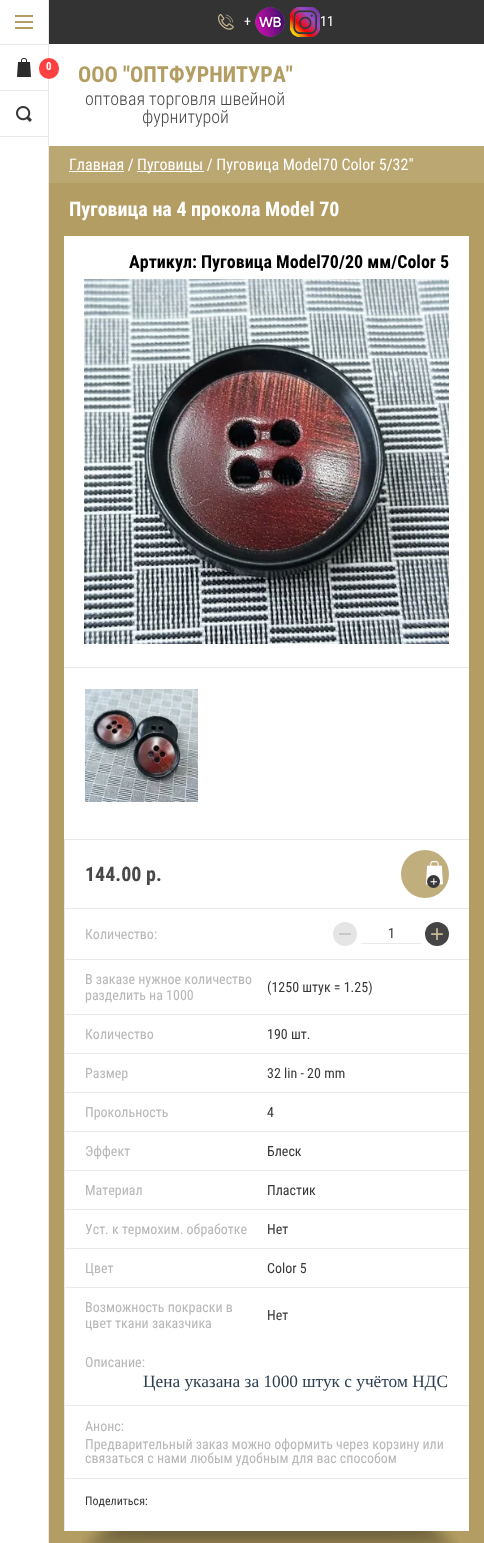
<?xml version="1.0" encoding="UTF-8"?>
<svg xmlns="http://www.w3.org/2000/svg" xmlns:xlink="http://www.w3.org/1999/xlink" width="484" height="1543">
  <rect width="100%" height="100%" fill="#b39d62" />
  <rect width="48" height="1543" fill="#ffffff" />
  <rect x="48" width="1" height="1543" fill="#eaeaea" />
  <rect y="44" width="49" height="1" fill="#eaeaea" />
  <image x="15" y="15" width="18" height="14" xlink:href="image1.png" />
  <rect y="90" width="48" height="1" fill="#eaeaea" />
  <image x="17" y="58" width="14" height="19" xlink:href="image2.png" />
  <rect x="49" y="44" width="435" height="102" fill="#ffffff" />
  <rect x="39" y="58" width="20" height="21" rx="10" fill="#ff4040" />
  <rect y="136" width="48" height="1" fill="#eaeaea" />
  <image x="16" y="106" width="16" height="16" xlink:href="image3.png" />
  <rect x="49" width="435" height="44" fill="#333333" />
  <image x="218" y="14" width="16" height="16" xlink:href="image4.png" />
  <image x="255" y="7" width="30" height="30" xlink:href="image5.png" />
  <image x="290" y="7" width="30" height="30" xlink:href="image6.png" />
  <rect x="49" y="146" width="435" height="37" fill="#bba772" />
  <rect x="69" y="171" width="55" height="1" fill="#ffffff" />
  <rect x="137" y="171" width="67" height="1" fill="#ffffff" />
  <rect x="64" y="236" width="405" height="1295" fill="#ffffff" />
  <image x="84" y="279" width="365" height="365" xlink:href="image7.png" />
  <rect x="64" y="667" width="405" height="1" fill="#eaeaea" />
  <image x="85" y="689" width="113" height="113" xlink:href="image8.png" />
  <rect x="64" y="839" width="1" height="692" fill="#eaeaea" />
  <rect x="65" y="839" width="404" height="1" fill="#eaeaea" />
  <circle cx="425" cy="874" r="24" fill="#c0ae7d" />
  <image x="426" y="861" width="17" height="24" xlink:href="image9.png" />
  <circle cx="433.5" cy="881.5" r="6.5" fill="#383838" />
  <rect x="65" y="908" width="404" height="1" fill="#eaeaea" />
  <circle cx="345" cy="934" r="12" fill="#e5e5e5" />
  <rect x="361" y="943" width="60" height="1" fill="#eaeaea" />
  <circle cx="437" cy="934" r="12" fill="#454545" />
  <rect x="65" y="959" width="404" height="1" fill="#eaeaea" />
  <rect x="65" y="1014" width="404" height="1" fill="#eaeaea" />
  <rect x="65" y="1053" width="404" height="1" fill="#eaeaea" />
  <rect x="65" y="1092" width="404" height="1" fill="#eaeaea" />
  <rect x="65" y="1131" width="404" height="1" fill="#eaeaea" />
  <rect x="65" y="1170" width="404" height="1" fill="#eaeaea" />
  <rect x="65" y="1209" width="404" height="1" fill="#eaeaea" />
  <rect x="65" y="1248" width="404" height="1" fill="#eaeaea" />
  <rect x="65" y="1287" width="404" height="1" fill="#eaeaea" />
  <rect x="65" y="1405" width="404" height="1" fill="#eaeaea" />
  <rect x="65" y="1478" width="404" height="1" fill="#eaeaea" />
  <image x="82" y="1531" width="377" height="12" xlink:href="image10.png" />
  <text x="46" y="70" style="font-family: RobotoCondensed; font-size: 11px; font-weight: bold; fill: #ffffff">0</text>
  <text x="244" y="26" style="font-family: RobotoCondensed; font-size: 14px; fill: #ffffff">+</text>
  <text x="320" y="26" style="font-family: RobotoCondensed; font-size: 14px; fill: #ffffff">11</text>
  <text x="78" y="82" style="font-family: RobotoCondensed; font-size: 22px; font-weight: bold; fill: #b39d62">ООО "ОПТФУРНИТУРА"</text>
  <text x="85" y="105" style="font-family: Roboto Condensed; font-size: 18px; font-weight: 300; fill: #484848">оптовая торговля швейной</text>
  <text x="142" y="123" style="font-family: Roboto Condensed; font-size: 18px; font-weight: 300; fill: #484848">фурнитурой</text>
  <text x="69" y="170" style="font-family: RobotoCondensed; font-size: 16px; fill: #ffffff">Главная /</text>
  <text x="137" y="170" style="font-family: RobotoCondensed; font-size: 16px; fill: #ffffff">Пуговицы / Пуговица Model70 Color 5/32"</text>
  <text x="69" y="216" style="font-family: RobotoCondensed; font-size: 20px; font-weight: bold; fill: #ffffff">Пуговица на 4 прокола Model 70</text>
  <text x="129" y="268" style="font-family: RobotoCondensed; font-size: 18px; font-weight: bold; fill: #000000">Артикул: Пуговица Model70/20 мм/Color 5</text>
  <text x="85" y="881" style="font-family: RobotoCondensed; font-size: 20px; font-weight: bold; fill: #484848">144.00 р.</text>
  <text x="430" y="886" style="font-family: Liberation Sans; font-size: 13px; fill: #ffffff">+</text>
  <text x="85" y="939" style="font-family: RobotoCondensed; font-size: 14px; fill: #b7b7b7">Количество:</text>
  <text x="338" y="942" style="font-family: Liberation Sans; font-size: 24px; fill: #c3c3c3">−</text>
  <text x="388" y="938" style="font-family: RobotoCondensed; font-size: 14px; fill: #383838">1</text>
  <text x="430" y="942" style="font-family: Liberation Sans; font-size: 24px; fill: #caba91">+</text>
  <text x="85" y="984" style="font-family: RobotoCondensed; font-size: 14px; fill: #b7b7b7">В заказе нужное количество</text>
  <text x="85" y="1000" style="font-family: RobotoCondensed; font-size: 14px; fill: #b7b7b7">разделить на 1000</text>
  <text x="267" y="992" style="font-family: RobotoCondensed; font-size: 14px; fill: #383838">(1250 штук = 1.25)</text>
  <text x="85" y="1039" style="font-family: RobotoCondensed; font-size: 14px; fill: #b7b7b7">Количество</text>
  <text x="267" y="1039" style="font-family: RobotoCondensed; font-size: 14px; fill: #383838">190 шт.</text>
  <text x="85" y="1078" style="font-family: RobotoCondensed; font-size: 14px; fill: #b7b7b7">Размер</text>
  <text x="267" y="1078" style="font-family: RobotoCondensed; font-size: 14px; fill: #383838">32 lin - 20 mm</text>
  <text x="85" y="1117" style="font-family: RobotoCondensed; font-size: 14px; fill: #b7b7b7">Прокольность</text>
  <text x="267" y="1117" style="font-family: RobotoCondensed; font-size: 14px; fill: #383838">4</text>
  <text x="85" y="1156" style="font-family: RobotoCondensed; font-size: 14px; fill: #b7b7b7">Эффект</text>
  <text x="267" y="1156" style="font-family: RobotoCondensed; font-size: 14px; fill: #383838">Блеск</text>
  <text x="85" y="1195" style="font-family: RobotoCondensed; font-size: 14px; fill: #b7b7b7">Материал</text>
  <text x="267" y="1195" style="font-family: RobotoCondensed; font-size: 14px; fill: #383838">Пластик</text>
  <text x="85" y="1234" style="font-family: RobotoCondensed; font-size: 14px; fill: #b7b7b7">Уст. к термохим. обработке</text>
  <text x="267" y="1234" style="font-family: RobotoCondensed; font-size: 14px; fill: #383838">Нет</text>
  <text x="85" y="1273" style="font-family: RobotoCondensed; font-size: 14px; fill: #b7b7b7">Цвет</text>
  <text x="267" y="1273" style="font-family: RobotoCondensed; font-size: 14px; fill: #383838">Color 5</text>
  <text x="85" y="1312" style="font-family: RobotoCondensed; font-size: 14px; fill: #b7b7b7">Возможность покраски в</text>
  <text x="85" y="1328" style="font-family: RobotoCondensed; font-size: 14px; fill: #b7b7b7">цвет ткани заказчика</text>
  <text x="267" y="1320" style="font-family: RobotoCondensed; font-size: 14px; fill: #383838">Нет</text>
  <text x="85" y="1367" style="font-family: RobotoCondensed; font-size: 14px; fill: #b7b7b7">Описание:</text>
  <text x="143" y="1387" style="font-family: Liberation Serif; font-size: 17.3px; fill: #2c3e50">Цена указана за 1000 штук с учётом НДС</text>
  <text x="85" y="1431" style="font-family: RobotoCondensed; font-size: 14px; fill: #b7b7b7">Анонс:</text>
  <text x="85" y="1449" style="font-family: RobotoCondensed; font-size: 14px; fill: #b7b7b7">Предварительный заказ можно оформить через корзину или</text>
  <text x="85" y="1463" style="font-family: RobotoCondensed; font-size: 14px; fill: #b7b7b7">связаться с нами любым удобным для вас способом</text>
  <text x="85" y="1505" style="font-family: RobotoCondensed; font-size: 12px; fill: #383838">Поделиться:</text>
</svg>
